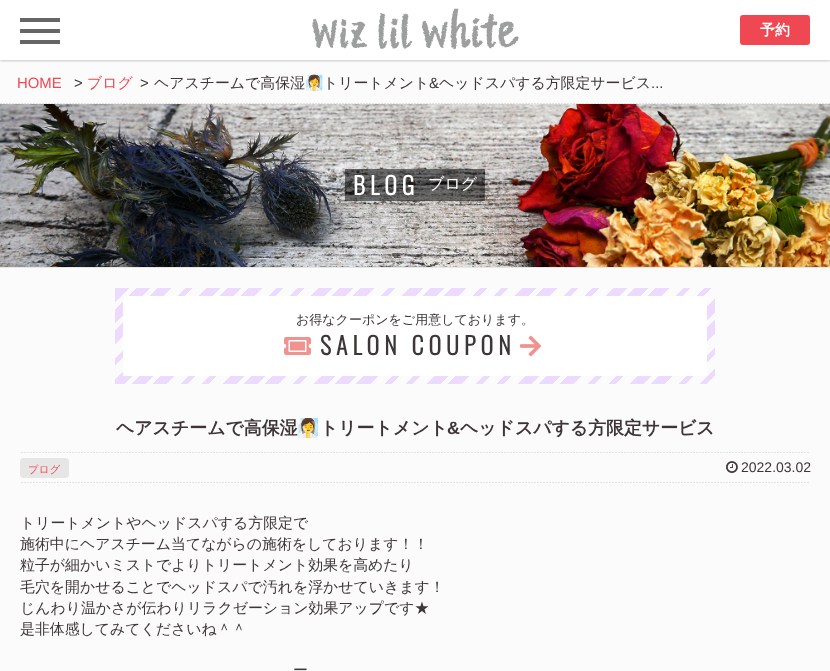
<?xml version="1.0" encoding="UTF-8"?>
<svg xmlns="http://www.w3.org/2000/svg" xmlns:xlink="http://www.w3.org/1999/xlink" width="830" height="671">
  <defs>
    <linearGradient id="g1" gradientUnits="userSpaceOnUse" x1="241" y1="162" x2="592" y2="513"><stop offset="0" stop-color="#eddbff" /><stop offset="0.02" stop-color="#eddbff" /><stop offset="0.02" stop-color="#fbfbfb" /><stop offset="0.03" stop-color="#fbfbfb" /><stop offset="0.03" stop-color="#eddbff" /><stop offset="0.05" stop-color="#eddbff" /><stop offset="0.05" stop-color="#fbfbfb" /><stop offset="0.06" stop-color="#fbfbfb" /><stop offset="0.06" stop-color="#eddbff" /><stop offset="0.08" stop-color="#eddbff" /><stop offset="0.08" stop-color="#fbfbfb" /><stop offset="0.1" stop-color="#fbfbfb" /><stop offset="0.1" stop-color="#eddbff" /><stop offset="0.11" stop-color="#eddbff" /><stop offset="0.11" stop-color="#fbfbfb" /><stop offset="0.13" stop-color="#fbfbfb" /><stop offset="0.13" stop-color="#eddbff" /><stop offset="0.15" stop-color="#eddbff" /><stop offset="0.15" stop-color="#fbfbfb" /><stop offset="0.16" stop-color="#fbfbfb" /><stop offset="0.16" stop-color="#eddbff" /><stop offset="0.18" stop-color="#eddbff" /><stop offset="0.18" stop-color="#fbfbfb" /><stop offset="0.19" stop-color="#fbfbfb" /><stop offset="0.19" stop-color="#eddbff" /><stop offset="0.21" stop-color="#eddbff" /><stop offset="0.21" stop-color="#fbfbfb" /><stop offset="0.23" stop-color="#fbfbfb" /><stop offset="0.23" stop-color="#eddbff" /><stop offset="0.24" stop-color="#eddbff" /><stop offset="0.24" stop-color="#fbfbfb" /><stop offset="0.26" stop-color="#fbfbfb" /><stop offset="0.26" stop-color="#eddbff" /><stop offset="0.27" stop-color="#eddbff" /><stop offset="0.27" stop-color="#fbfbfb" /><stop offset="0.29" stop-color="#fbfbfb" /><stop offset="0.29" stop-color="#eddbff" /><stop offset="0.31" stop-color="#eddbff" /><stop offset="0.31" stop-color="#fbfbfb" /><stop offset="0.32" stop-color="#fbfbfb" /><stop offset="0.32" stop-color="#eddbff" /><stop offset="0.34" stop-color="#eddbff" /><stop offset="0.34" stop-color="#fbfbfb" /><stop offset="0.35" stop-color="#fbfbfb" /><stop offset="0.35" stop-color="#eddbff" /><stop offset="0.37" stop-color="#eddbff" /><stop offset="0.37" stop-color="#fbfbfb" /><stop offset="0.39" stop-color="#fbfbfb" /><stop offset="0.39" stop-color="#eddbff" /><stop offset="0.4" stop-color="#eddbff" /><stop offset="0.4" stop-color="#fbfbfb" /><stop offset="0.42" stop-color="#fbfbfb" /><stop offset="0.42" stop-color="#eddbff" /><stop offset="0.44" stop-color="#eddbff" /><stop offset="0.44" stop-color="#fbfbfb" /><stop offset="0.45" stop-color="#fbfbfb" /><stop offset="0.45" stop-color="#eddbff" /><stop offset="0.47" stop-color="#eddbff" /><stop offset="0.47" stop-color="#fbfbfb" /><stop offset="0.48" stop-color="#fbfbfb" /><stop offset="0.48" stop-color="#eddbff" /><stop offset="0.5" stop-color="#eddbff" /><stop offset="0.5" stop-color="#fbfbfb" /><stop offset="0.52" stop-color="#fbfbfb" /><stop offset="0.52" stop-color="#eddbff" /><stop offset="0.53" stop-color="#eddbff" /><stop offset="0.53" stop-color="#fbfbfb" /><stop offset="0.55" stop-color="#fbfbfb" /><stop offset="0.55" stop-color="#eddbff" /><stop offset="0.56" stop-color="#eddbff" /><stop offset="0.56" stop-color="#fbfbfb" /><stop offset="0.58" stop-color="#fbfbfb" /><stop offset="0.58" stop-color="#eddbff" /><stop offset="0.6" stop-color="#eddbff" /><stop offset="0.6" stop-color="#fbfbfb" /><stop offset="0.61" stop-color="#fbfbfb" /><stop offset="0.61" stop-color="#eddbff" /><stop offset="0.63" stop-color="#eddbff" /><stop offset="0.63" stop-color="#fbfbfb" /><stop offset="0.65" stop-color="#fbfbfb" /><stop offset="0.65" stop-color="#eddbff" /><stop offset="0.66" stop-color="#eddbff" /><stop offset="0.66" stop-color="#fbfbfb" /><stop offset="0.68" stop-color="#fbfbfb" /><stop offset="0.68" stop-color="#eddbff" /><stop offset="0.69" stop-color="#eddbff" /><stop offset="0.69" stop-color="#fbfbfb" /><stop offset="0.71" stop-color="#fbfbfb" /><stop offset="0.71" stop-color="#eddbff" /><stop offset="0.73" stop-color="#eddbff" /><stop offset="0.73" stop-color="#fbfbfb" /><stop offset="0.74" stop-color="#fbfbfb" /><stop offset="0.74" stop-color="#eddbff" /><stop offset="0.76" stop-color="#eddbff" /><stop offset="0.76" stop-color="#fbfbfb" /><stop offset="0.77" stop-color="#fbfbfb" /><stop offset="0.77" stop-color="#eddbff" /><stop offset="0.79" stop-color="#eddbff" /><stop offset="0.79" stop-color="#fbfbfb" /><stop offset="0.81" stop-color="#fbfbfb" /><stop offset="0.81" stop-color="#eddbff" /><stop offset="0.82" stop-color="#eddbff" /><stop offset="0.82" stop-color="#fbfbfb" /><stop offset="0.84" stop-color="#fbfbfb" /><stop offset="0.84" stop-color="#eddbff" /><stop offset="0.85" stop-color="#eddbff" /><stop offset="0.85" stop-color="#fbfbfb" /><stop offset="0.87" stop-color="#fbfbfb" /><stop offset="0.87" stop-color="#eddbff" /><stop offset="0.89" stop-color="#eddbff" /><stop offset="0.89" stop-color="#fbfbfb" /><stop offset="0.9" stop-color="#fbfbfb" /><stop offset="0.9" stop-color="#eddbff" /><stop offset="0.92" stop-color="#eddbff" /><stop offset="0.92" stop-color="#fbfbfb" /><stop offset="0.94" stop-color="#fbfbfb" /><stop offset="0.94" stop-color="#eddbff" /><stop offset="0.95" stop-color="#eddbff" /><stop offset="0.95" stop-color="#fbfbfb" /><stop offset="0.97" stop-color="#fbfbfb" /><stop offset="0.97" stop-color="#eddbff" /><stop offset="0.98" stop-color="#eddbff" /><stop offset="0.98" stop-color="#fbfbfb" /><stop offset="1" stop-color="#fbfbfb" /></linearGradient>
  </defs>
  <rect width="100%" height="100%" fill="#fbfbfb" />
  <rect y="1" width="830" height="60" fill="#000000" fill-opacity="0.2" filter="blur(1px)" />
  <rect width="830" height="60" fill="#ffffff" />
  <rect x="20" y="18" width="40" height="4" fill="#666666" />
  <rect x="20" y="29" width="40" height="4" fill="#666666" />
  <rect x="20" y="40" width="40" height="4" fill="#666666" />
  <image x="312" y="8" width="207" height="42" xlink:href="image1.png" />
  <rect x="740" y="15" width="70" height="30" rx="3" fill="#f04853" />
  <image x="0" y="103" width="830" height="1" xlink:href="image2.png" />
  <image x="0" y="104" width="830" height="163" xlink:href="image3.png" />
  <rect y="267" width="830" height="1" fill="#e6e6e6" />
  <rect x="345" y="169" width="140" height="32" fill="#000000" fill-opacity="0.5" />
  <rect x="115" y="288" width="600" height="96" fill="url(#g1)" />
  <rect x="123" y="296" width="584" height="80" fill="#ffffff" />
  <image x="284" y="337" width="27" height="18" xlink:href="image4.png" />
  <image x="520" y="335" width="21" height="22" xlink:href="image5.png" />
  <image x="21" y="452" width="788" height="1" xlink:href="image6.png" />
  <image x="21" y="482" width="788" height="1" xlink:href="image6.png" />
  <rect x="20" y="458" width="49" height="20" rx="4" fill="#e6e6e6" />
  <image x="726" y="461" width="12" height="12" xlink:href="image7.png" />
  <text x="760" y="35" style="font-family: WenQuanYi Zen Hei; font-size: 14.9px; font-weight: bold; fill: #ffffff">予約</text>
  <text x="17" y="88" style="font-family: Liberation Sans; font-size: 14.9px; fill: #f04853">HOME</text>
  <text x="74" y="88" style="font-family: Liberation Sans; font-size: 14.9px; fill: #3d3536">&gt;</text>
  <text x="87" y="88" style="font-family: WenQuanYi Zen Hei; font-size: 14.9px; font-weight: 500; fill: #f04853">ブログ</text>
  <text x="140" y="88" style="font-family: Liberation Sans; font-size: 14.9px; fill: #3d3536">&gt;</text>
  <text x="154" y="88" style="font-family: WenQuanYi Zen Hei; font-size: 14.9px; font-weight: 500; fill: #3d3536">ヘアスチームで高保湿</text>
  <text x="305" y="88" style="font-family: Noto Color Emoji; font-size: 14.9px; fill: #3d3536">🧖‍♀️</text>
  <text x="323" y="88" style="font-family: WenQuanYi Zen Hei; font-size: 14.9px; font-weight: 500; fill: #3d3536">トリートメント</text>
  <text x="429" y="88" style="font-family: Liberation Sans; font-size: 14.9px; fill: #3d3536">&amp;</text>
  <text x="439" y="88" style="font-family: WenQuanYi Zen Hei; font-size: 14.9px; font-weight: 500; fill: #3d3536">ヘッドスパする方限定サービス</text>
  <text x="651" y="88" style="font-family: Liberation Sans; font-size: 14.9px; fill: #3d3536">...</text>
  <text x="353" y="195" style="font-family: Oswald; font-size: 24px; font-weight: bold; letter-spacing: 5px; fill: #ffffff">BLOG</text>
  <text x="428" y="189" style="font-family: WenQuanYi Zen Hei; font-size: 16px; font-weight: 500; fill: #ffffff">ブログ</text>
  <text x="296" y="324" style="font-family: WenQuanYi Zen Hei; font-size: 13px; font-weight: 500; fill: #3d3536">お得なクーポンをご用意しております。</text>
  <text x="320" y="355" style="font-family: Oswald; font-size: 24px; font-weight: bold; letter-spacing: 5px; fill: #3d3536">SALON COUPON</text>
  <text x="116" y="434" style="font-family: WenQuanYi Zen Hei; font-size: 17.9px; font-weight: bold; fill: #3d3536">ヘアスチームで高保湿</text>
  <text x="297" y="434" style="font-family: Noto Color Emoji; font-size: 17.9px; font-weight: bold; fill: #3d3536">🧖‍♀️</text>
  <text x="320" y="434" style="font-family: WenQuanYi Zen Hei; font-size: 17.9px; font-weight: bold; fill: #3d3536">トリートメント</text>
  <text x="447" y="434" style="font-family: Liberation Sans; font-size: 17.9px; font-weight: bold; fill: #3d3536">&amp;</text>
  <text x="460" y="434" style="font-family: WenQuanYi Zen Hei; font-size: 17.9px; font-weight: bold; fill: #3d3536">ヘッドスパする方限定サービス</text>
  <text x="28" y="473" style="font-family: WenQuanYi Zen Hei; font-size: 10.5px; font-weight: 500; fill: #f04853">ブログ</text>
  <text x="741" y="472" style="font-family: Liberation Sans; font-size: 14px; fill: #3d3536">2022.03.02</text>
  <text x="20" y="528" style="font-family: WenQuanYi Zen Hei; font-size: 14.9px; font-weight: 500; fill: #3d3536">トリートメントやヘッドスパする方限定で</text>
  <text x="20" y="549" style="font-family: WenQuanYi Zen Hei; font-size: 14.9px; font-weight: 500; fill: #3d3536">施術中にヘアスチーム当てながらの施術をしております！！</text>
  <text x="20" y="570" style="font-family: WenQuanYi Zen Hei; font-size: 14.9px; font-weight: 500; fill: #3d3536">粒子が細かいミストでよりトリートメント効果を高めたり</text>
  <text x="20" y="592" style="font-family: WenQuanYi Zen Hei; font-size: 14.9px; font-weight: 500; fill: #3d3536">毛穴を開かせることでヘッドスパで汚れを浮かせていきます！</text>
  <text x="20" y="613" style="font-family: WenQuanYi Zen Hei; font-size: 14.9px; font-weight: 500; fill: #3d3536">じんわり温かさが伝わりリラクゼーション効果アップです★</text>
  <text x="20" y="634" style="font-family: WenQuanYi Zen Hei; font-size: 14.9px; font-weight: 500; fill: #3d3536">是非体感してみてくださいね＾＾</text>
  <text x="293" y="675" style="font-family: WenQuanYi Zen Hei; font-size: 14.9px; font-weight: 500; fill: #3d3536">ー</text>
</svg>
